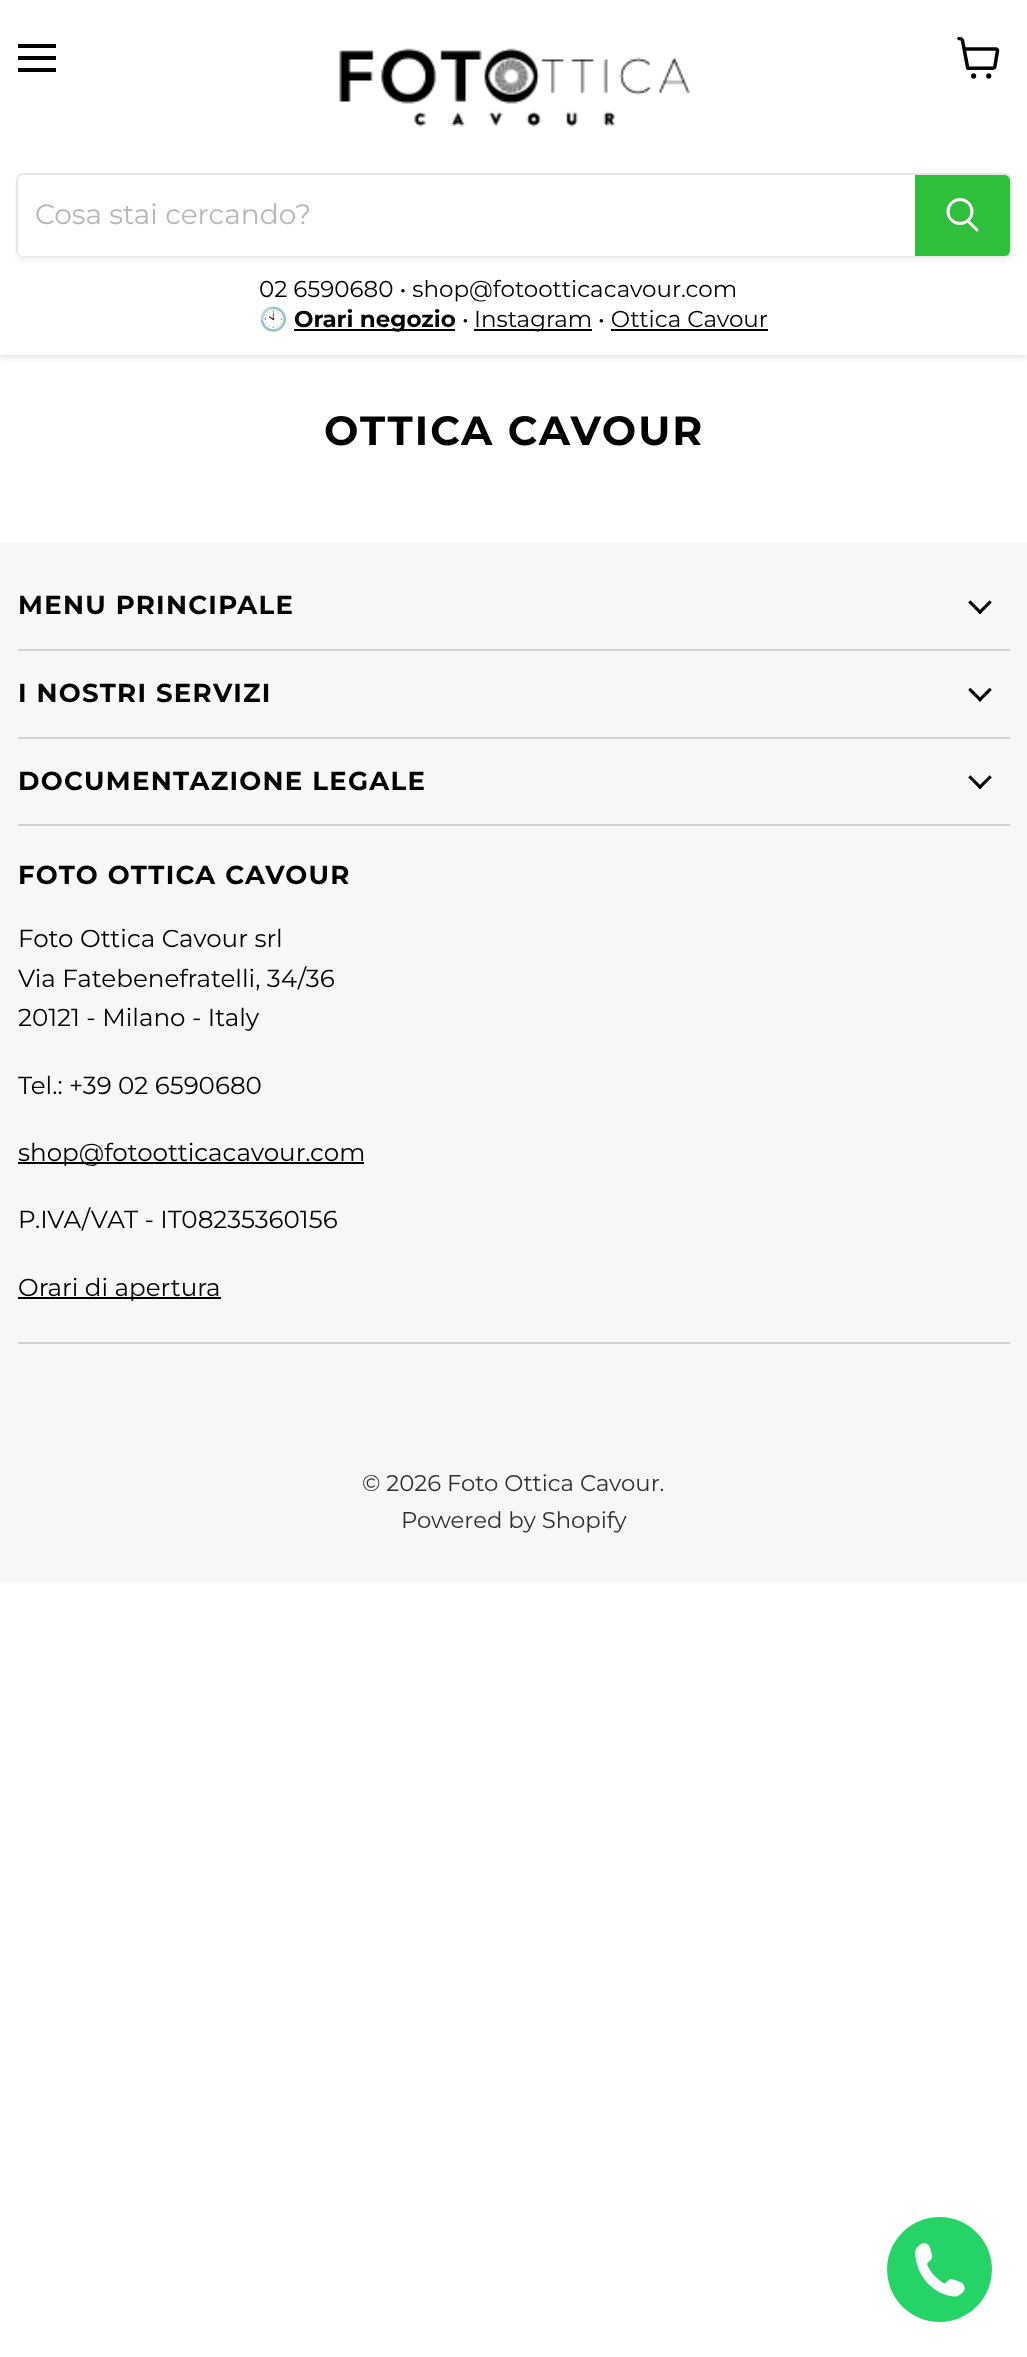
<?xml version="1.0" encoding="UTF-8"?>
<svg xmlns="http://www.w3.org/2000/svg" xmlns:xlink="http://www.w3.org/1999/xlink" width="1027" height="2357">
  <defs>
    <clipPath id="clip1"><rect x="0" y="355" width="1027" height="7" /></clipPath>
    <clipPath id="clip2"><path d="M 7 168 h 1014 v 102 h -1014 z m 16 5 h 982 c 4 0 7 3 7 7 v 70 c 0 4 -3 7 -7 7 h -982 c -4 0 -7 -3 -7 -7 v -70 c 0 -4 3 -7 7 -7 z" clip-rule="evenodd" /></clipPath>
  </defs>
  <rect width="100%" height="100%" fill="#ffffff" />
  <g clip-path="url(#clip1)">
    <rect y="2" width="1027" height="355" fill="#808080" fill-opacity="0.25" filter="blur(3.5px)" />
  </g>
  <rect x="18" y="44" width="38" height="4" fill="#000000" />
  <rect x="18" y="56" width="38" height="4" fill="#000000" />
  <rect x="18" y="68" width="38" height="4" fill="#000000" />
  <image x="957" y="37" width="43" height="42" xlink:href="image1.png" />
  <image x="339" y="48" width="351" height="79" xlink:href="image2.png" />
  <g clip-path="url(#clip2)">
    <rect x="16" y="177" width="996" height="84" rx="7" fill="#808080" fill-opacity="0.11" filter="blur(2.5px)" />
  </g>
  <rect x="17" y="174" width="994" height="82" rx="6" fill="none" stroke="#808080" stroke-opacity="0.2" stroke-width="2" />
  <path d="M 23 175 h 892 v 81 h -892 c -3 0 -5 -2 -5 -5 v -71 c 0 -3 2 -5 5 -5 z" fill="#ffffff" />
  <path d="M 916 176 h 89 c 2 0 4 2 4 4 v 71 c 0 2 -2 4 -4 4 h -89 z" fill="#30bf3a" stroke="#30bf3a" stroke-width="2" />
  <path d="M 977 230 l -8.5 -8.5" fill="none" stroke="#ffffff" stroke-width="3" stroke-linecap="round" />
  <circle cx="960" cy="211.5" r="12" fill="none" stroke="#ffffff" stroke-width="3" />
  <rect x="294" y="329" width="161" height="2" fill="#000000" />
  <rect x="474" y="329" width="118" height="2" fill="#000000" />
  <rect x="611" y="329" width="157" height="2" fill="#000000" />
  <rect y="543" width="1027" height="1039" fill="#f7f7f7" />
  <rect x="18" y="649" width="992" height="2" fill="#d2d2d2" />
  <image x="968" y="600" width="24" height="14" xlink:href="image3.png" />
  <rect x="18" y="737" width="992" height="2" fill="#d2d2d2" />
  <image x="968" y="688" width="24" height="14" xlink:href="image4.png" />
  <rect x="18" y="824" width="992" height="2" fill="#d2d2d2" />
  <image x="968" y="775" width="24" height="14" xlink:href="image3.png" />
  <rect x="18" y="1342" width="992" height="2" fill="#d2d2d2" />
  <rect x="18" y="1162" width="346" height="2" fill="#000000" />
  <rect x="18" y="1297" width="203" height="2" fill="#000000" />
  <circle cx="939.5" cy="2269.5" r="52.5" fill="#25d366" />
  <image x="915" y="2243" width="50" height="54" xlink:href="image5.png" />
  <text x="35" y="224" style="font-family: Montserrat; font-size: 28px; font-weight: 100; fill: #b8b8b8">Cosa stai cercando?</text>
  <text x="259" y="297" style="font-family: Montserrat; font-size: 23px; font-weight: 100; fill: #000000">02 6590680 • shop@fotootticacavour.com</text>
  <text x="259" y="327" style="font-family: Noto Color Emoji; font-size: 23px; fill: #000000">🕙</text>
  <text x="294" y="327" style="font-family: Montserrat; font-size: 23px; font-weight: bold; fill: #000000">Orari negozio</text>
  <text x="462" y="327" style="font-family: Montserrat; font-size: 23px; font-weight: 100; fill: #000000">•</text>
  <text x="474" y="327" style="font-family: Montserrat; font-size: 23px; font-weight: 100; fill: #000000">Instagram</text>
  <text x="598" y="327" style="font-family: Montserrat; font-size: 23px; font-weight: 100; fill: #000000">• Ottica Cavour</text>
  <text x="324" y="445" style="font-family: Montserrat; font-size: 40.75px; font-weight: bold; letter-spacing: 2px; fill: #000000">OTTICA CAVOUR</text>
  <text x="18" y="614" style="font-family: Montserrat; font-size: 26px; font-weight: bold; letter-spacing: 1.3px; fill: #000000">MENU PRINCIPALE</text>
  <text x="18" y="702" style="font-family: Montserrat; font-size: 26px; font-weight: bold; letter-spacing: 1.3px; fill: #000000">I NOSTRI SERVIZI</text>
  <text x="18" y="790" style="font-family: Montserrat; font-size: 26px; font-weight: bold; letter-spacing: 1.3px; fill: #000000">DOCUMENTAZIONE LEGALE</text>
  <text x="18" y="884" style="font-family: Montserrat; font-size: 26px; font-weight: bold; letter-spacing: 1.3px; fill: #000000">FOTO OTTICA CAVOUR</text>
  <text x="18" y="947" style="font-family: Montserrat; font-size: 24.6px; font-weight: 100; fill: #000000">Foto Ottica Cavour srl</text>
  <text x="18" y="987" style="font-family: Montserrat; font-size: 24.6px; font-weight: 100; fill: #000000">Via Fatebenefratelli, 34/36</text>
  <text x="18" y="1026" style="font-family: Montserrat; font-size: 24.6px; font-weight: 100; fill: #000000">20121 - Milano - Italy</text>
  <text x="18" y="1094" style="font-family: Montserrat; font-size: 24.6px; font-weight: 100; fill: #000000">Tel.: +39 02 6590680</text>
  <text x="18" y="1161" style="font-family: Montserrat; font-size: 24.6px; font-weight: 100; fill: #000000">shop@fotootticacavour.com</text>
  <text x="18" y="1228" style="font-family: Montserrat; font-size: 24.6px; font-weight: 100; fill: #000000">P.IVA/VAT - IT08235360156</text>
  <text x="18" y="1296" style="font-family: Montserrat; font-size: 24.6px; font-weight: 100; fill: #000000">Orari di apertura</text>
  <text x="362" y="1491" style="font-family: Montserrat; font-size: 22.75px; font-weight: 100; fill: #313131">© 2026 Foto Ottica Cavour.</text>
  <text x="401" y="1528" style="font-family: Montserrat; font-size: 22.75px; font-weight: 100; fill: #313131">Powered by Shopify</text>
</svg>
